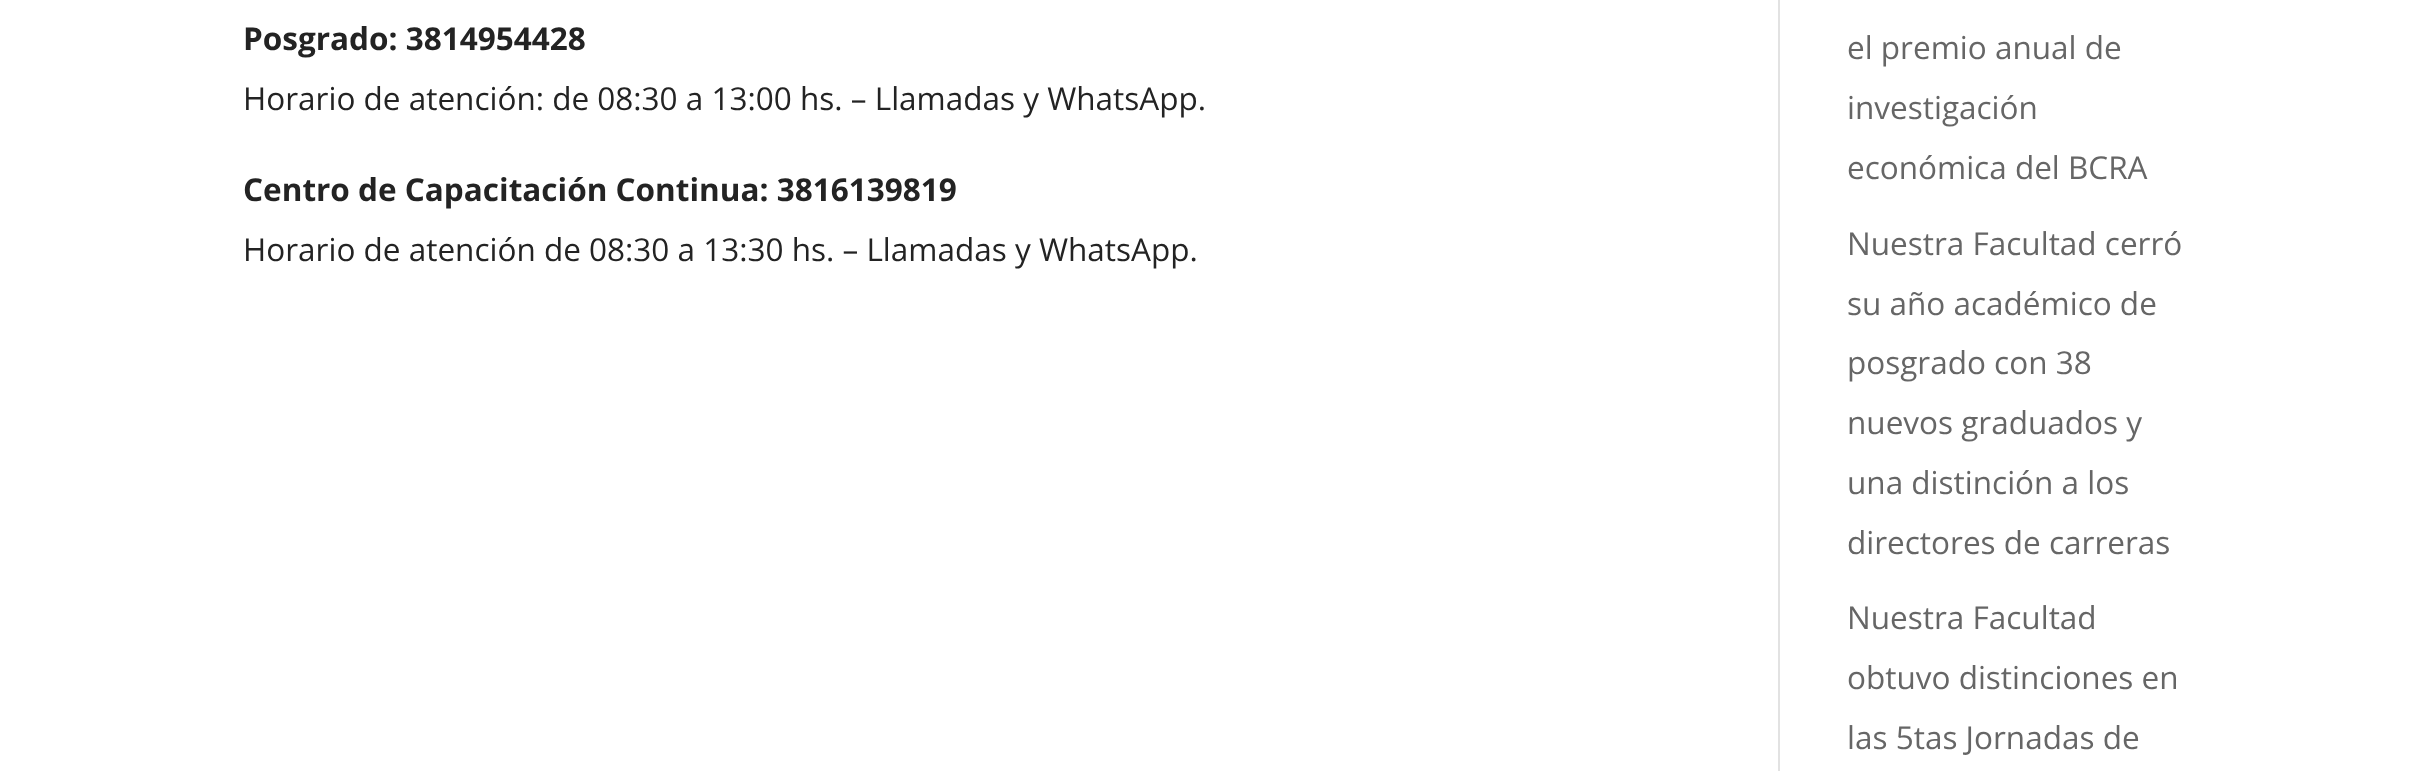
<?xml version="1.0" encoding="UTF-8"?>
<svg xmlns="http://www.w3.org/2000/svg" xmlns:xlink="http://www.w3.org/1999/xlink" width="2427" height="771">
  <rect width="100%" height="100%" fill="#ffffff" />
  <rect x="1778" width="2" height="771" fill="#e2e2e2" />
  <text x="243" y="50" style="font-family: Open Sans; font-size: 31.5px; font-weight: bold; fill: #232323">Posgrado: 3814954428</text>
  <text x="243" y="110" style="font-family: Open Sans; font-size: 31.5px; fill: #232323">Horario de atención: de 08:30 a 13:00 hs. – Llamadas y WhatsApp.</text>
  <text x="243" y="201" style="font-family: Open Sans; font-size: 31.5px; font-weight: bold; fill: #232323">Centro de Capacitación Continua: 3816139819</text>
  <text x="243" y="261" style="font-family: Open Sans; font-size: 31.5px; fill: #232323">Horario de atención de 08:30 a 13:30 hs. – Llamadas y WhatsApp.</text>
  <text x="1847" y="59" style="font-family: Open Sans; font-size: 31.5px; fill: #666666">el premio anual de</text>
  <text x="1847" y="119" style="font-family: Open Sans; font-size: 31.5px; fill: #666666">investigación</text>
  <text x="1847" y="179" style="font-family: Open Sans; font-size: 31.5px; fill: #666666">económica del BCRA</text>
  <text x="1847" y="255" style="font-family: Open Sans; font-size: 31.5px; fill: #666666">Nuestra Facultad cerró</text>
  <text x="1847" y="315" style="font-family: Open Sans; font-size: 31.5px; fill: #666666">su año académico de</text>
  <text x="1847" y="374" style="font-family: Open Sans; font-size: 31.5px; fill: #666666">posgrado con 38</text>
  <text x="1847" y="434" style="font-family: Open Sans; font-size: 31.5px; fill: #666666">nuevos graduados y</text>
  <text x="1847" y="494" style="font-family: Open Sans; font-size: 31.5px; fill: #666666">una distinción a los</text>
  <text x="1847" y="554" style="font-family: Open Sans; font-size: 31.5px; fill: #666666">directores de carreras</text>
  <text x="1847" y="629" style="font-family: Open Sans; font-size: 31.5px; fill: #666666">Nuestra Facultad</text>
  <text x="1847" y="689" style="font-family: Open Sans; font-size: 31.5px; fill: #666666">obtuvo distinciones en</text>
  <text x="1847" y="749" style="font-family: Open Sans; font-size: 31.5px; fill: #666666">las 5tas Jornadas de</text>
</svg>
